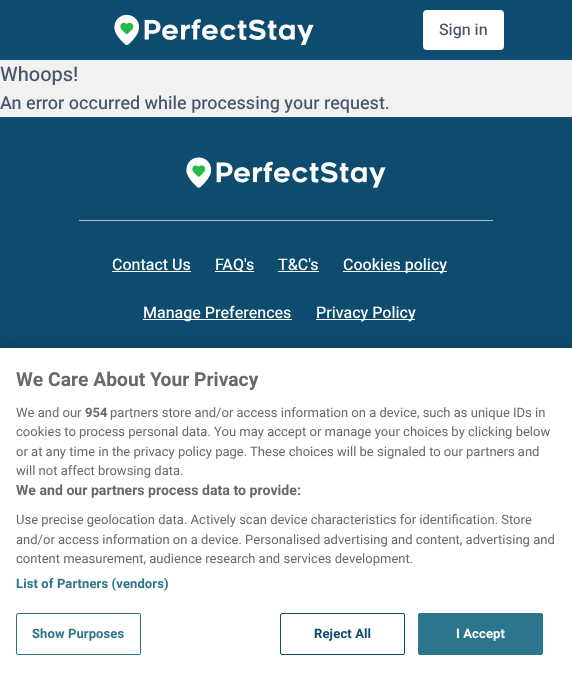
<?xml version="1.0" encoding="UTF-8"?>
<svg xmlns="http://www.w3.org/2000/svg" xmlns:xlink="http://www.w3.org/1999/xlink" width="572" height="678">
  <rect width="100%" height="100%" fill="#f1f1f1" />
  <rect width="572" height="60" fill="#0d4b6f" />
  <image x="114" y="14" width="200" height="32" xlink:href="image1.png" />
  <rect x="423" y="10" width="81" height="40" rx="4" fill="#ffffff" />
  <rect y="117" width="572" height="231" fill="#0d4b6f" />
  <image x="186" y="157" width="200" height="31" xlink:href="image2.png" />
  <rect x="79" y="220" width="414" height="1" fill="#b0bbc6" />
  <rect x="112" y="271" width="79" height="1" fill="#ffffff" />
  <rect x="215" y="271" width="39" height="1" fill="#ffffff" />
  <rect x="278" y="271" width="41" height="1" fill="#ffffff" />
  <rect x="343" y="271" width="104" height="1" fill="#ffffff" />
  <rect x="143" y="319" width="149" height="1" fill="#ffffff" />
  <rect x="316" y="319" width="99" height="1" fill="#ffffff" />
  <rect y="348" width="572" height="330" fill="#000000" fill-opacity="0.2" filter="blur(9px)" />
  <rect y="348" width="572" height="330" fill="#ffffff" />
  <rect x="16.5" y="613.5" width="124" height="41" rx="1.5" fill="none" stroke="#2d758c" />
  <rect x="280.5" y="613.5" width="124" height="41" rx="1.5" fill="none" stroke="#0d4b6f" />
  <rect x="418.5" y="613.5" width="124" height="41" rx="1.5" fill="#2d758c" stroke="#2d758c" />
  <text x="439" y="35" style="font-family: Heebo; font-size: 16px; font-weight: 500; fill: #475568">Sign in</text>
  <text x="0" y="81" style="font-family: Heebo; font-size: 20px; font-weight: 500; fill: #475568">Whoops!</text>
  <text x="0" y="109" style="font-family: Heebo; font-size: 18px; font-weight: 500; fill: #475568">An error occurred while processing your request.</text>
  <text x="112" y="270" style="font-family: Heebo; font-size: 16px; font-weight: 500; fill: #ffffff">Contact Us</text>
  <text x="215" y="270" style="font-family: Heebo; font-size: 16px; font-weight: 500; fill: #ffffff">FAQ's</text>
  <text x="278" y="270" style="font-family: Heebo; font-size: 16px; font-weight: 500; fill: #ffffff">T&amp;C's</text>
  <text x="343" y="270" style="font-family: Heebo; font-size: 16px; font-weight: 500; fill: #ffffff">Cookies policy</text>
  <text x="143" y="318" style="font-family: Heebo; font-size: 16px; font-weight: 500; fill: #ffffff">Manage Preferences</text>
  <text x="316" y="318" style="font-family: Heebo; font-size: 16px; font-weight: 500; fill: #ffffff">Privacy Policy</text>
  <text x="16" y="386" style="font-family: Heebo; font-size: 19.25px; font-weight: bold; fill: #696969">We Care About Your Privacy</text>
  <text x="16" y="417" style="font-family: Heebo; font-size: 13px; fill: #696969">We and our</text>
  <text x="85" y="417" style="font-family: Heebo; font-size: 13px; font-weight: bold; fill: #696969">954</text>
  <text x="110" y="417" style="font-family: Heebo; font-size: 13px; fill: #696969">partners store and/or access information on a device, such as unique IDs in</text>
  <text x="16" y="436" style="font-family: Heebo; font-size: 13px; fill: #696969">cookies to process personal data. You may accept or manage your choices by clicking below</text>
  <text x="16" y="456" style="font-family: Heebo; font-size: 13px; fill: #696969">or at any time in the privacy policy page. These choices will be signaled to our partners and</text>
  <text x="16" y="475" style="font-family: Heebo; font-size: 13px; fill: #696969">will not affect browsing data.</text>
  <text x="16" y="495" style="font-family: Heebo; font-size: 14.1px; font-weight: bold; fill: #696969">We and our partners process data to provide:</text>
  <text x="16" y="524" style="font-family: Heebo; font-size: 13px; fill: #696969">Use precise geolocation data. Actively scan device characteristics for identification. Store</text>
  <text x="16" y="544" style="font-family: Heebo; font-size: 13px; fill: #696969">and/or access information on a device. Personalised advertising and content, advertising and</text>
  <text x="16" y="563" style="font-family: Heebo; font-size: 13px; fill: #696969">content measurement, audience research and services development.</text>
  <text x="16" y="588" style="font-family: Heebo; font-size: 13px; font-weight: bold; letter-spacing: 0.1px; fill: #2d758c">List of Partners (vendors)</text>
  <text x="32" y="638" style="font-family: Heebo; font-size: 13px; font-weight: bold; letter-spacing: 0.1px; fill: #2d758c">Show Purposes</text>
  <text x="314" y="638" style="font-family: Heebo; font-size: 13px; font-weight: bold; letter-spacing: 0.1px; fill: #0d4b6f">Reject All</text>
  <text x="456" y="638" style="font-family: Heebo; font-size: 13px; font-weight: bold; letter-spacing: 0.1px; fill: #ffffff">I Accept</text>
</svg>
